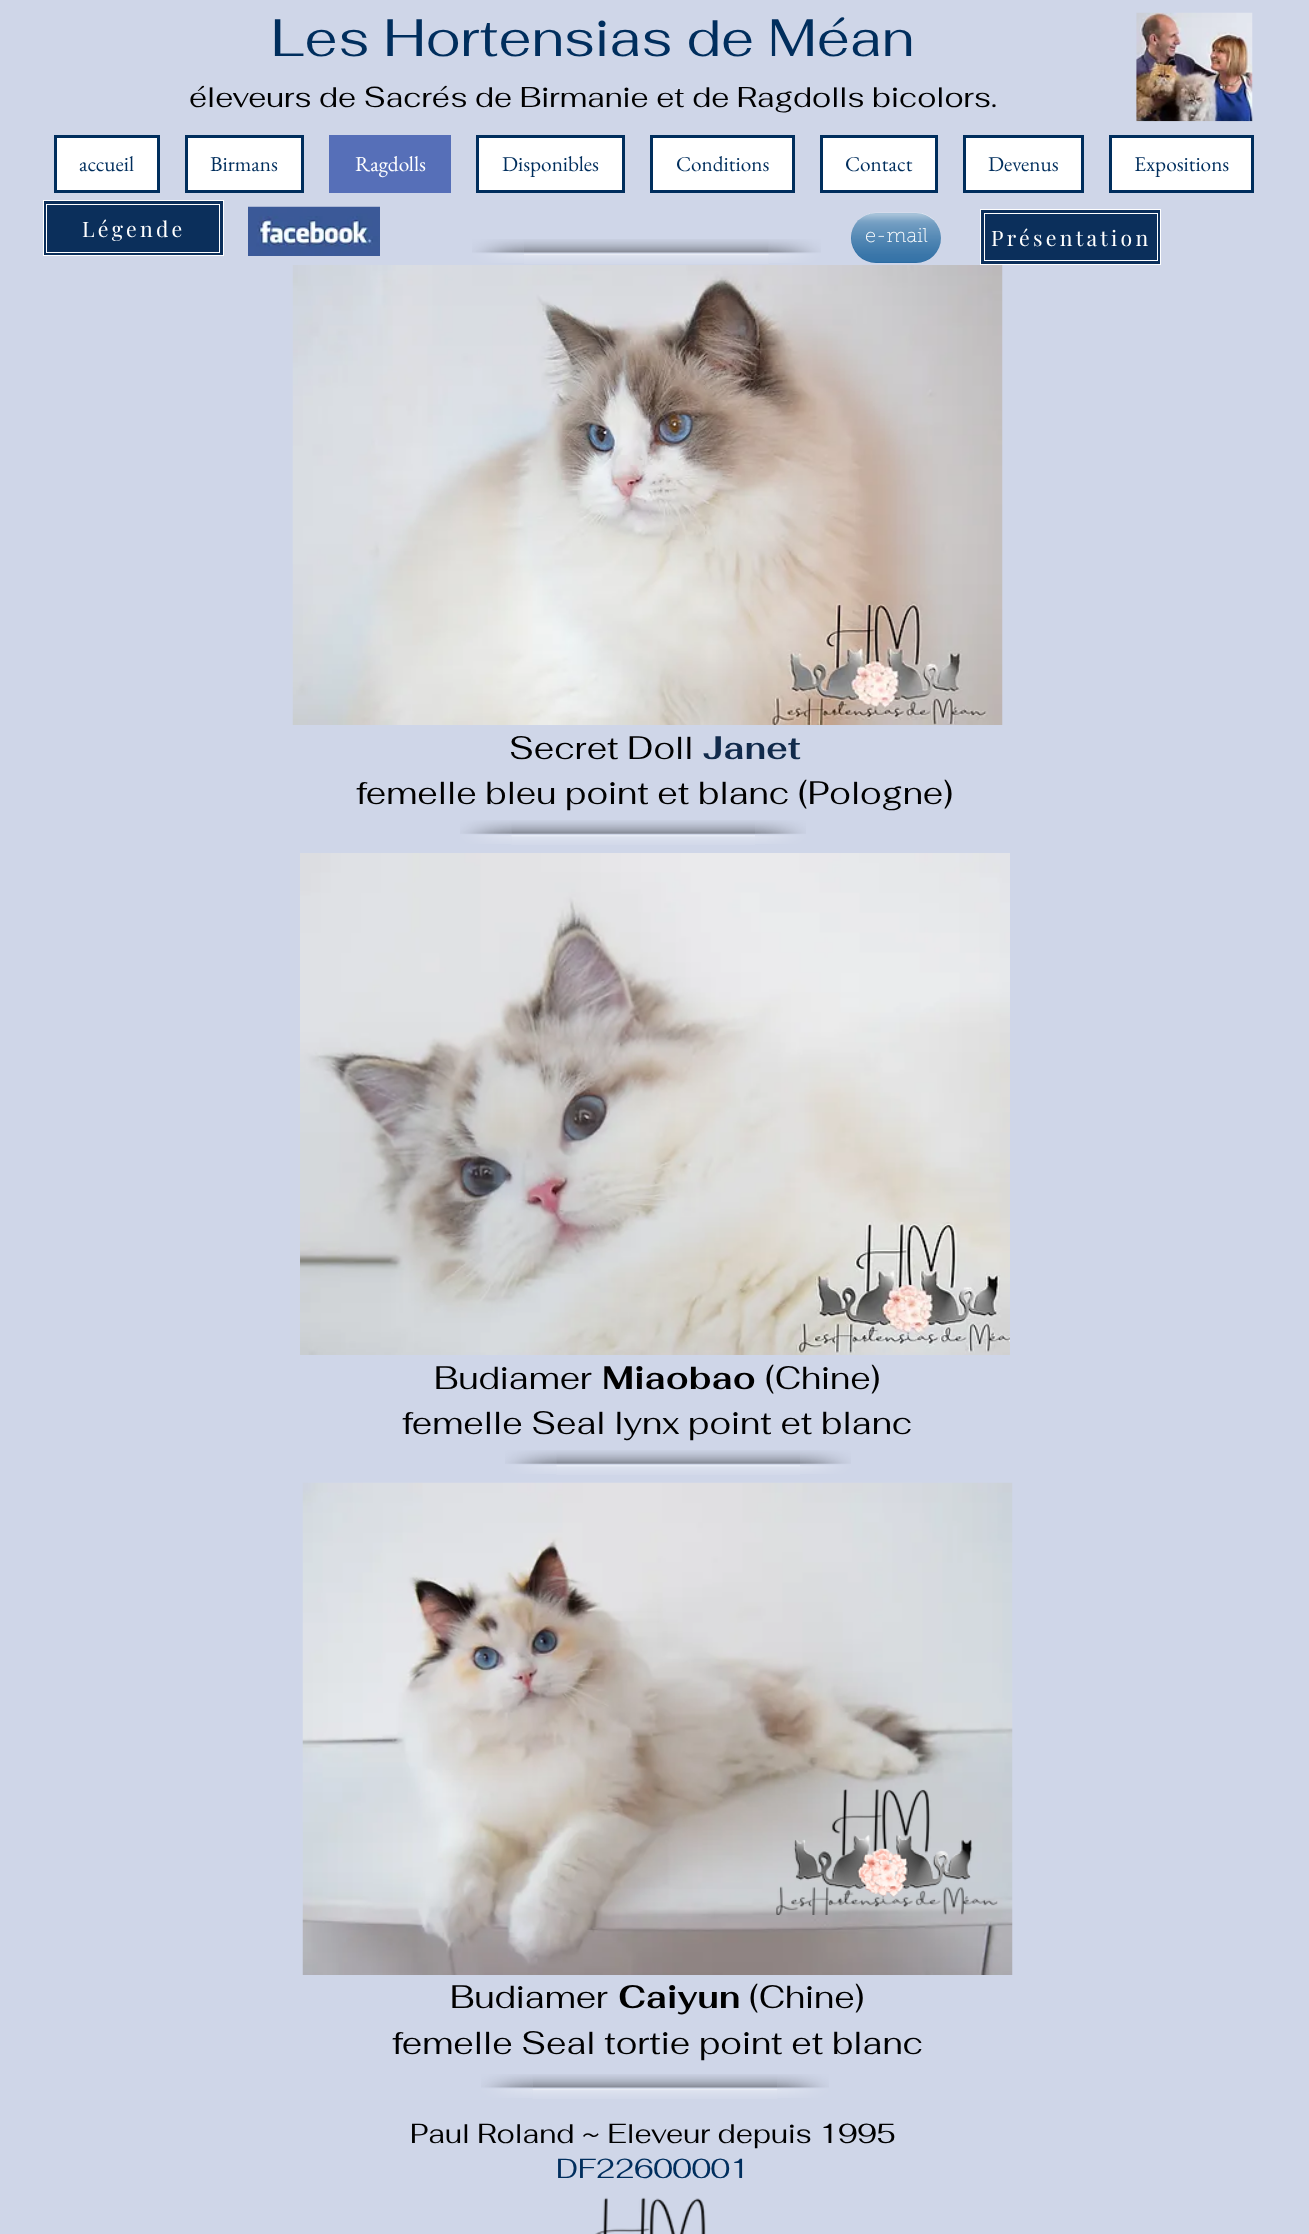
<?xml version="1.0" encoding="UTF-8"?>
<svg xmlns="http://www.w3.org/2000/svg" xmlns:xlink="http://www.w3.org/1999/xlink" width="1309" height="2234">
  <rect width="100%" height="100%" fill="#cfd6e8" />
  <image x="1136" y="12" width="117" height="110" xlink:href="image1.png" />
  <rect x="55.5" y="136.5" width="103" height="55" fill="#ffffff" stroke="#002e5d" stroke-width="3" />
  <rect x="186.5" y="136.5" width="116" height="55" fill="#ffffff" stroke="#002e5d" stroke-width="3" />
  <rect x="329" y="135" width="122" height="58" fill="#566fb8" />
  <rect x="477.5" y="136.5" width="146" height="55" fill="#ffffff" stroke="#002e5d" stroke-width="3" />
  <rect x="651.5" y="136.5" width="142" height="55" fill="#ffffff" stroke="#002e5d" stroke-width="3" />
  <rect x="821.5" y="136.5" width="115" height="55" fill="#ffffff" stroke="#002e5d" stroke-width="3" />
  <rect x="964.5" y="136.5" width="118" height="55" fill="#ffffff" stroke="#002e5d" stroke-width="3" />
  <rect x="1110.5" y="136.5" width="142" height="55" fill="#ffffff" stroke="#002e5d" stroke-width="3" />
  <rect x="43.5" y="200.5" width="180" height="55" fill="#0b2f5b" stroke="#ffffff" />
  <rect x="46.5" y="204.5" width="173" height="48" fill="none" stroke="#ffffff" />
  <image x="248" y="206" width="132" height="50" xlink:href="image2.png" />
  <image x="523" y="239" width="246" height="25" xlink:href="image3.png" />
  <image x="472" y="239" width="52" height="24" xlink:href="image4.png" />
  <image x="768" y="239" width="53" height="24" xlink:href="image5.png" />
  <rect x="851" y="213" width="90" height="50" rx="25" fill="#2b6ca3" />
  <image x="851" y="212" width="90" height="50" xlink:href="image6.png" />
  <rect x="980.5" y="209.5" width="180" height="55" fill="#0b2f5b" stroke="#ffffff" />
  <rect x="984.5" y="213.5" width="173" height="47" fill="none" stroke="#ffffff" />
  <image x="292" y="265" width="711" height="460" xlink:href="image7.png" />
  <image x="511" y="820" width="244" height="25" xlink:href="image8.png" />
  <image x="460" y="820" width="52" height="24" xlink:href="image9.png" />
  <image x="755" y="820" width="51" height="24" xlink:href="image10.png" />
  <image x="300" y="853" width="710" height="502" xlink:href="image11.png" />
  <image x="556" y="1450" width="244" height="25" xlink:href="image8.png" />
  <image x="505" y="1450" width="52" height="24" xlink:href="image12.png" />
  <image x="800" y="1450" width="51" height="24" xlink:href="image13.png" />
  <image x="302" y="1482" width="711" height="493" xlink:href="image14.png" />
  <image x="776" y="1789" width="222" height="126" xlink:href="image15.png" />
  <image x="532" y="2074" width="246" height="25" xlink:href="image16.png" />
  <image x="481" y="2074" width="52" height="24" xlink:href="image17.png" />
  <image x="777" y="2074" width="52" height="24" xlink:href="image18.png" />
  <image x="595" y="2197" width="111" height="37" xlink:href="image19.png" />
  <text x="271" y="56" style="font-family: Fahkwang; font-size: 52.5px; fill: #002e5d">Les Hortensias de Méan</text>
  <text x="189" y="107" style="font-family: Fahkwang; font-size: 28.75px; fill: #000000">éleveurs de Sacrés de Birmanie et de Ragdolls bicolors.</text>
  <text x="79" y="171" style="font-family: EB Garamond; font-size: 21.25px; fill: #002e5d">accueil</text>
  <text x="210" y="171" style="font-family: EB Garamond; font-size: 21.25px; fill: #002e5d">Birmans</text>
  <text x="355" y="171" style="font-family: EB Garamond; font-size: 21.25px; fill: #ffffff">Ragdolls</text>
  <text x="502" y="171" style="font-family: EB Garamond; font-size: 21.25px; fill: #002e5d">Disponibles</text>
  <text x="676" y="171" style="font-family: EB Garamond; font-size: 21.25px; fill: #002e5d">Conditions</text>
  <text x="845" y="171" style="font-family: EB Garamond; font-size: 21.25px; fill: #002e5d">Contact</text>
  <text x="988" y="171" style="font-family: EB Garamond; font-size: 21.25px; fill: #002e5d">Devenus</text>
  <text x="1134" y="171" style="font-family: EB Garamond; font-size: 21.25px; fill: #002e5d">Expositions</text>
  <text x="82" y="237" style="font-family: Playfair Display; font-size: 21.25px; letter-spacing: 3.25px; fill: #ffffff">Légende</text>
  <text x="865" y="242" style="font-family: 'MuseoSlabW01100'; font-size: 20px; font-weight: 100; fill: #ffffff">e-mail</text>
  <text x="991" y="246" style="font-family: Playfair Display; font-size: 21.25px; letter-spacing: 3.25px; fill: #ffffff">Présentation</text>
  <text x="509" y="759" style="font-family: Fahkwang; font-size: 32.5px; fill: #000000">Secret Doll</text>
  <text x="703" y="759" style="font-family: Fahkwang; font-size: 32.5px; font-weight: bold; fill: #112a4b">Janet</text>
  <text x="356" y="804" style="font-family: Fahkwang; font-size: 32.5px; fill: #000000">femelle bleu point et blanc (Pologne)</text>
  <text x="434" y="1389" style="font-family: Fahkwang; font-size: 32.5px; fill: #000000">Budiamer</text>
  <text x="602" y="1389" style="font-family: Fahkwang; font-size: 32.5px; font-weight: bold; fill: #000000">Miaobao</text>
  <text x="765" y="1389" style="font-family: Fahkwang; font-size: 32.5px; fill: #000000">(Chine)</text>
  <text x="402" y="1434" style="font-family: Fahkwang; font-size: 32.5px; fill: #000000">femelle Seal lynx point et blanc</text>
  <text x="450" y="2008" style="font-family: Fahkwang; font-size: 32.5px; fill: #000000">Budiamer</text>
  <text x="618" y="2008" style="font-family: Fahkwang; font-size: 32.5px; font-weight: bold; fill: #000000">Caiyun</text>
  <text x="749" y="2008" style="font-family: Fahkwang; font-size: 32.5px; fill: #000000">(Chine)</text>
  <text x="392" y="2054" style="font-family: Fahkwang; font-size: 32.5px; fill: #000000">femelle Seal tortie point et blanc</text>
  <text x="410" y="2143" style="font-family: Fahkwang; font-size: 27.5px; fill: #000000">Paul Roland ~ Eleveur depuis 1995</text>
  <text x="556" y="2178" style="font-family: Fahkwang; font-size: 27.5px; fill: #002e5d">DF22600001</text>
</svg>
